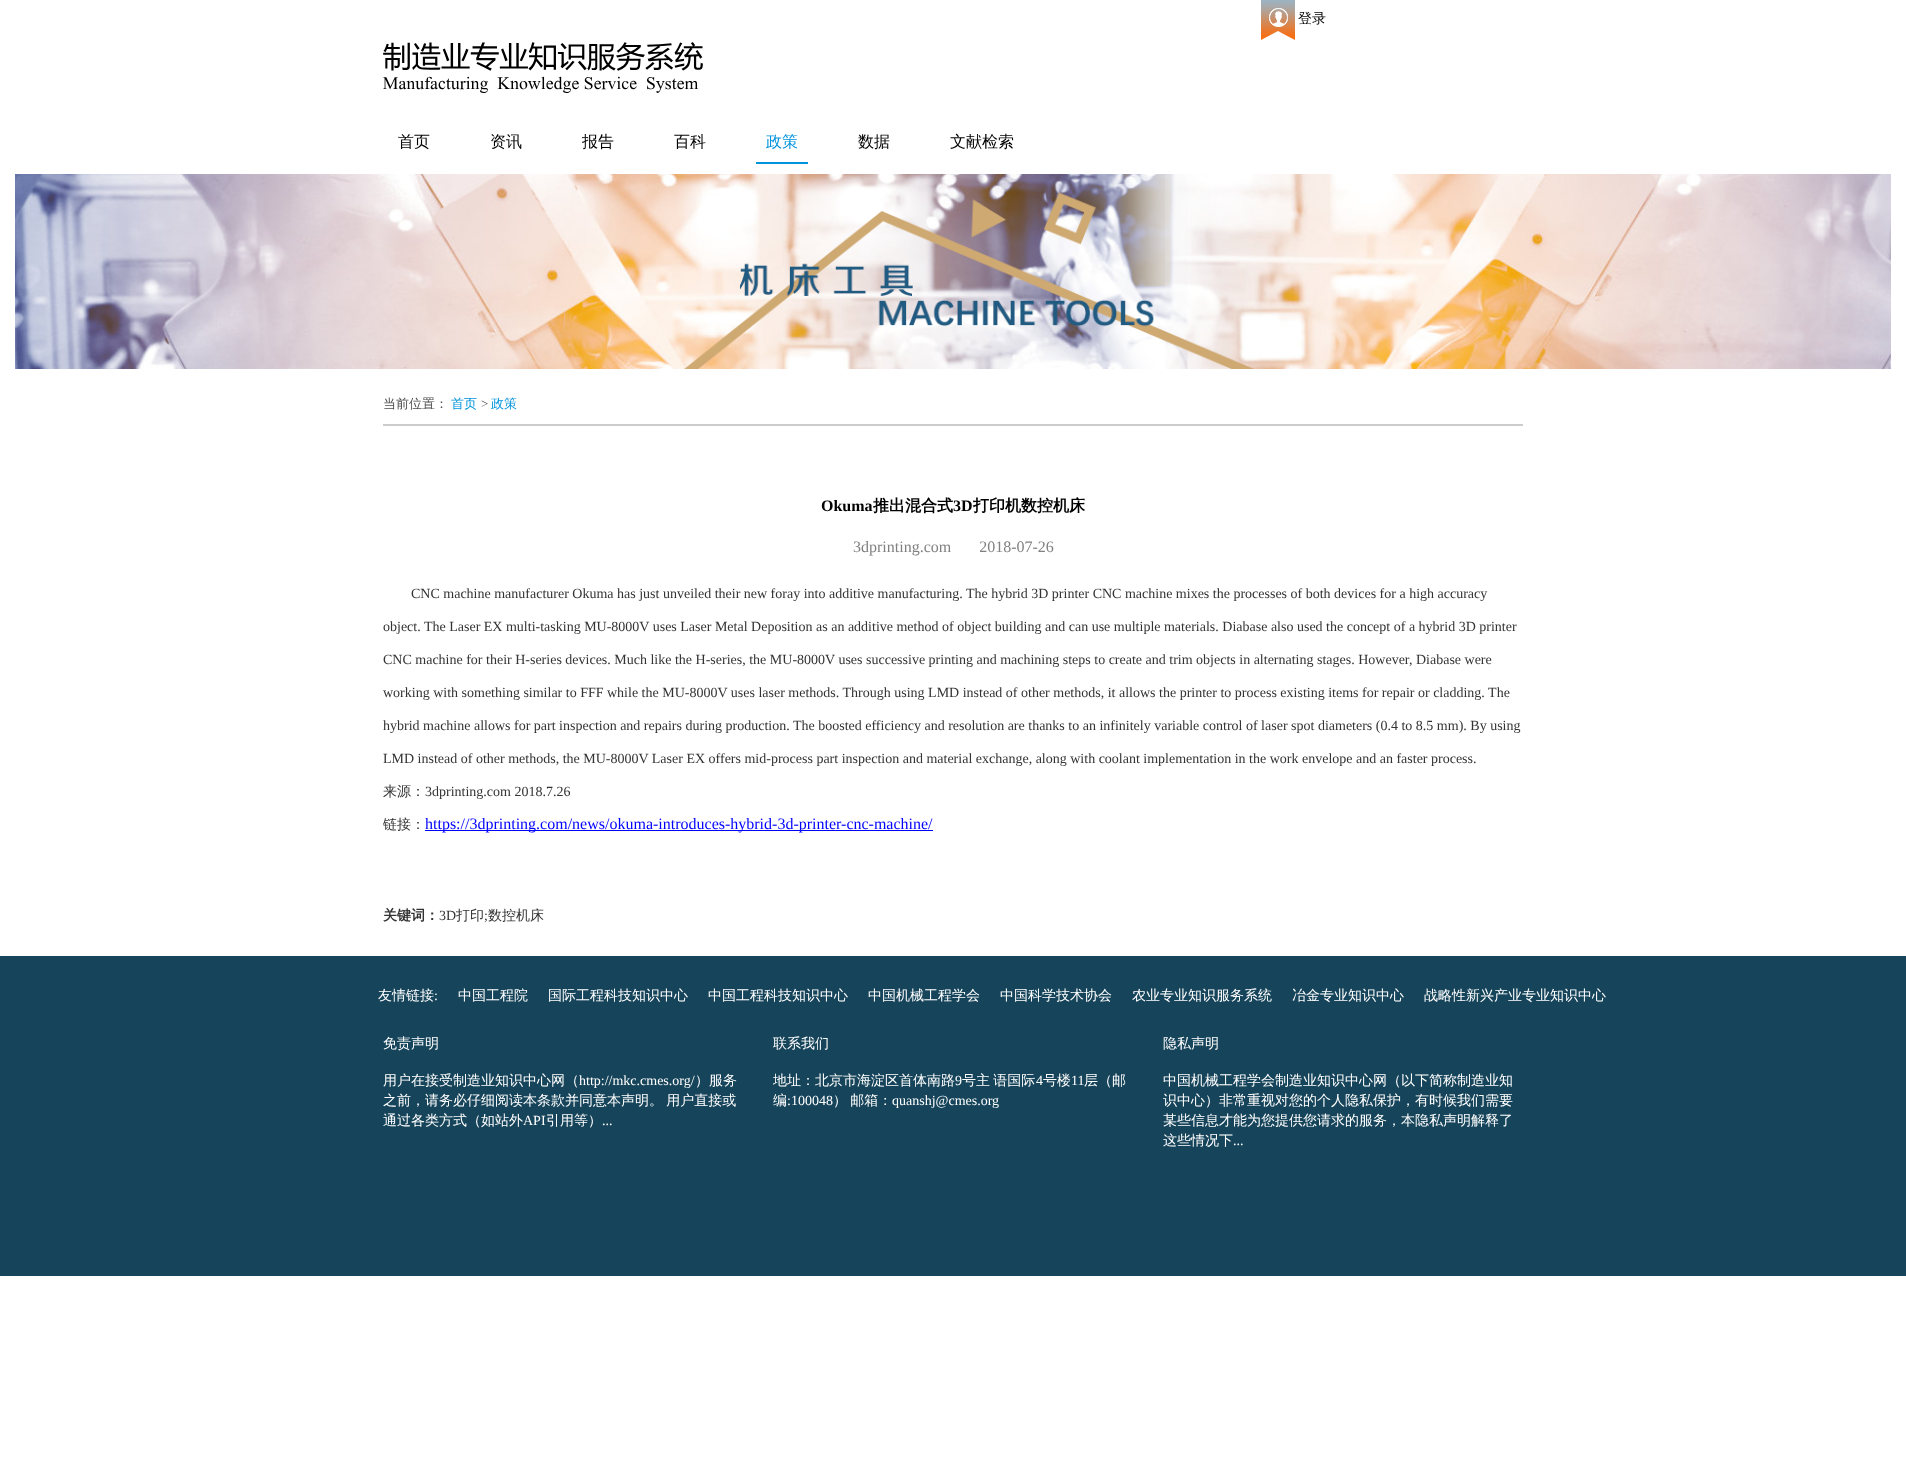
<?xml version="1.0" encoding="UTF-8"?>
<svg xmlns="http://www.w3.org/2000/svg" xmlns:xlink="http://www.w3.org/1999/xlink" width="1906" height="1482">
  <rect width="100%" height="100%" fill="#ffffff" />
  <image x="1261" y="0" width="34" height="40" xlink:href="image1.png" />
  <image x="383" y="42" width="320" height="51" xlink:href="image2.png" />
  <rect x="756" y="162" width="52" height="2" fill="#0093dd" />
  <image x="15" y="174" width="1876" height="195" xlink:href="image3.png" />
  <rect x="383" y="424" width="1140" height="2" fill="#cccccc" />
  <rect x="425" y="830" width="508" height="1" fill="#0000ff" />
  <rect y="956" width="1906" height="320" fill="#16445a" />
  <text x="1298" y="23" style="font-family: WenQuanYi Zen Hei; font-size: 14px; font-weight: 500; fill: #000000">登录</text>
  <text x="398" y="147" style="font-family: WenQuanYi Zen Hei; font-size: 16px; font-weight: 500; fill: #000000">首页</text>
  <text x="490" y="147" style="font-family: WenQuanYi Zen Hei; font-size: 16px; font-weight: 500; fill: #000000">资讯</text>
  <text x="582" y="147" style="font-family: WenQuanYi Zen Hei; font-size: 16px; font-weight: 500; fill: #000000">报告</text>
  <text x="674" y="147" style="font-family: WenQuanYi Zen Hei; font-size: 16px; font-weight: 500; fill: #000000">百科</text>
  <text x="766" y="147" style="font-family: WenQuanYi Zen Hei; font-size: 16px; font-weight: 500; fill: #0093dd">政策</text>
  <text x="858" y="147" style="font-family: WenQuanYi Zen Hei; font-size: 16px; font-weight: 500; fill: #000000">数据</text>
  <text x="950" y="147" style="font-family: WenQuanYi Zen Hei; font-size: 16px; font-weight: 500; fill: #000000">文献检索</text>
  <text x="383" y="408" style="font-family: WenQuanYi Zen Hei; font-size: 13px; font-weight: 500; fill: #4d4d4d">当前位置：</text>
  <text x="451" y="408" style="font-family: WenQuanYi Zen Hei; font-size: 13px; font-weight: 500; fill: #0093dd">首页</text>
  <text x="481" y="408" style="font-family: Liberation Serif; font-size: 13px; fill: #4d4d4d">&gt;</text>
  <text x="491" y="408" style="font-family: WenQuanYi Zen Hei; font-size: 13px; font-weight: 500; fill: #0093dd">政策</text>
  <text x="821" y="511" style="font-family: Liberation Serif; font-size: 16px; font-weight: bold; fill: #000000">Okuma</text>
  <text x="873" y="511" style="font-family: WenQuanYi Zen Hei; font-size: 16px; font-weight: bold; fill: #000000">推出混合式</text>
  <text x="953" y="511" style="font-family: Liberation Serif; font-size: 16px; font-weight: bold; fill: #000000">3D</text>
  <text x="973" y="511" style="font-family: WenQuanYi Zen Hei; font-size: 16px; font-weight: bold; fill: #000000">打印机数控机床</text>
  <text x="853" y="552" style="font-family: Liberation Serif; font-size: 16px; fill: #808080" xml:space="preserve">3dprinting.com       2018-07-26</text>
  <text x="411" y="598" style="font-family: Liberation Serif; font-size: 14px; fill: #333333">CNC machine manufacturer Okuma has just unveiled their new foray into additive manufacturing. The hybrid 3D printer CNC machine mixes the processes of both devices for a high accuracy</text>
  <text x="383" y="631" style="font-family: Liberation Serif; font-size: 14px; fill: #333333">object. The Laser EX multi-tasking MU-8000V uses Laser Metal Deposition as an additive method of object building and can use multiple materials. Diabase also used the concept of a hybrid 3D printer</text>
  <text x="383" y="664" style="font-family: Liberation Serif; font-size: 14px; fill: #333333">CNC machine for their H-series devices. Much like the H-series, the MU-8000V uses successive printing and machining steps to create and trim objects in alternating stages. However, Diabase were</text>
  <text x="383" y="697" style="font-family: Liberation Serif; font-size: 14px; fill: #333333">working with something similar to FFF while the MU-8000V uses laser methods. Through using LMD instead of other methods, it allows the printer to process existing items for repair or cladding. The</text>
  <text x="383" y="730" style="font-family: Liberation Serif; font-size: 14px; fill: #333333">hybrid machine allows for part inspection and repairs during production. The boosted efficiency and resolution are thanks to an infinitely variable control of laser spot diameters (0.4 to 8.5 mm). By using</text>
  <text x="383" y="763" style="font-family: Liberation Serif; font-size: 14px; fill: #333333">LMD instead of other methods, the MU-8000V Laser EX offers mid-process part inspection and material exchange, along with coolant implementation in the work envelope and an faster process.</text>
  <text x="383" y="796" style="font-family: WenQuanYi Zen Hei; font-size: 14px; font-weight: 500; fill: #333333">来源：</text>
  <text x="425" y="796" style="font-family: Liberation Serif; font-size: 14px; fill: #333333">3dprinting.com 2018.7.26</text>
  <text x="383" y="829" style="font-family: WenQuanYi Zen Hei; font-size: 14px; font-weight: 500; fill: #333333">链接：</text>
  <text x="425" y="829" style="font-family: Liberation Serif; font-size: 16px; fill: #0000ff">https://3dprinting.com/news/okuma-introduces-hybrid-3d-printer-cnc-machine/</text>
  <text x="383" y="920" style="font-family: WenQuanYi Zen Hei; font-size: 14px; font-weight: bold; fill: #333333">关键词：</text>
  <text x="439" y="920" style="font-family: Liberation Serif; font-size: 14px; fill: #333333">3D</text>
  <text x="456" y="920" style="font-family: WenQuanYi Zen Hei; font-size: 14px; font-weight: 500; fill: #333333">打印</text>
  <text x="484" y="920" style="font-family: Liberation Serif; font-size: 14px; fill: #333333">;</text>
  <text x="488" y="920" style="font-family: WenQuanYi Zen Hei; font-size: 14px; font-weight: 500; fill: #333333">数控机床</text>
  <text x="378" y="1000" style="font-family: WenQuanYi Zen Hei; font-size: 14px; font-weight: 500; fill: #ffffff">友情链接</text>
  <text x="434" y="1000" style="font-family: Liberation Serif; font-size: 14px; fill: #ffffff">:</text>
  <text x="458" y="1000" style="font-family: WenQuanYi Zen Hei; font-size: 14px; font-weight: 500; fill: #ffffff">中国工程院</text>
  <text x="548" y="1000" style="font-family: WenQuanYi Zen Hei; font-size: 14px; font-weight: 500; fill: #ffffff">国际工程科技知识中心</text>
  <text x="708" y="1000" style="font-family: WenQuanYi Zen Hei; font-size: 14px; font-weight: 500; fill: #ffffff">中国工程科技知识中心</text>
  <text x="868" y="1000" style="font-family: WenQuanYi Zen Hei; font-size: 14px; font-weight: 500; fill: #ffffff">中国机械工程学会</text>
  <text x="1000" y="1000" style="font-family: WenQuanYi Zen Hei; font-size: 14px; font-weight: 500; fill: #ffffff">中国科学技术协会</text>
  <text x="1132" y="1000" style="font-family: WenQuanYi Zen Hei; font-size: 14px; font-weight: 500; fill: #ffffff">农业专业知识服务系统</text>
  <text x="1292" y="1000" style="font-family: WenQuanYi Zen Hei; font-size: 14px; font-weight: 500; fill: #ffffff">冶金专业知识中心</text>
  <text x="1424" y="1000" style="font-family: WenQuanYi Zen Hei; font-size: 14px; font-weight: 500; fill: #ffffff">战略性新兴产业专业知识中心</text>
  <text x="383" y="1048" style="font-family: WenQuanYi Zen Hei; font-size: 14px; font-weight: 500; fill: #ffffff">免责声明</text>
  <text x="383" y="1085" style="font-family: WenQuanYi Zen Hei; font-size: 14px; font-weight: 500; fill: #ffffff">用户在接受制造业知识中心网（</text>
  <text x="579" y="1085" style="font-family: Liberation Serif; font-size: 14px; fill: #ffffff">http://mkc.cmes.org/</text>
  <text x="695" y="1085" style="font-family: WenQuanYi Zen Hei; font-size: 14px; font-weight: 500; fill: #ffffff">）服务</text>
  <text x="383" y="1105" word-spacing="-1" style="font-family: WenQuanYi Zen Hei; font-size: 14px; font-weight: 500; fill: #ffffff">之前，请务必仔细阅读本条款并同意本声明。 用户直接或</text>
  <text x="383" y="1125" style="font-family: WenQuanYi Zen Hei; font-size: 14px; font-weight: 500; fill: #ffffff">通过各类方式（如站外</text>
  <text x="523" y="1125" style="font-family: Liberation Serif; font-size: 14px; fill: #ffffff">API</text>
  <text x="546" y="1125" style="font-family: WenQuanYi Zen Hei; font-size: 14px; font-weight: 500; fill: #ffffff">引用等）</text>
  <text x="602" y="1125" style="font-family: Liberation Serif; font-size: 14px; fill: #ffffff">...</text>
  <text x="773" y="1048" style="font-family: WenQuanYi Zen Hei; font-size: 14px; font-weight: 500; fill: #ffffff">联系我们</text>
  <text x="773" y="1085" style="font-family: WenQuanYi Zen Hei; font-size: 14px; font-weight: 500; fill: #ffffff">地址：北京市海淀区首体南路</text>
  <text x="955" y="1085" style="font-family: Liberation Serif; font-size: 14px; fill: #ffffff">9</text>
  <text x="962" y="1085" word-spacing="-1" style="font-family: WenQuanYi Zen Hei; font-size: 14px; font-weight: 500; fill: #ffffff">号主 语国际</text>
  <text x="1036" y="1085" style="font-family: Liberation Serif; font-size: 14px; fill: #ffffff">4</text>
  <text x="1043" y="1085" style="font-family: WenQuanYi Zen Hei; font-size: 14px; font-weight: 500; fill: #ffffff">号楼</text>
  <text x="1071" y="1085" style="font-family: Liberation Serif; font-size: 14px; fill: #ffffff">11</text>
  <text x="1084" y="1085" style="font-family: WenQuanYi Zen Hei; font-size: 14px; font-weight: 500; fill: #ffffff">层（邮</text>
  <text x="773" y="1105" style="font-family: WenQuanYi Zen Hei; font-size: 14px; font-weight: 500; fill: #ffffff">编</text>
  <text x="787" y="1105" style="font-family: Liberation Serif; font-size: 14px; fill: #ffffff">:100048</text>
  <text x="833" y="1105" word-spacing="-1" style="font-family: WenQuanYi Zen Hei; font-size: 14px; font-weight: 500; fill: #ffffff">） 邮箱：</text>
  <text x="892" y="1105" style="font-family: Liberation Serif; font-size: 14px; fill: #ffffff">quanshj@cmes.org</text>
  <text x="1163" y="1048" style="font-family: WenQuanYi Zen Hei; font-size: 14px; font-weight: 500; fill: #ffffff">隐私声明</text>
  <text x="1163" y="1085" style="font-family: WenQuanYi Zen Hei; font-size: 14px; font-weight: 500; fill: #ffffff">中国机械工程学会制造业知识中心网（以下简称制造业知</text>
  <text x="1163" y="1105" style="font-family: WenQuanYi Zen Hei; font-size: 14px; font-weight: 500; fill: #ffffff">识中心）非常重视对您的个人隐私保护，有时候我们需要</text>
  <text x="1163" y="1125" style="font-family: WenQuanYi Zen Hei; font-size: 14px; font-weight: 500; fill: #ffffff">某些信息才能为您提供您请求的服务，本隐私声明解释了</text>
  <text x="1163" y="1145" style="font-family: WenQuanYi Zen Hei; font-size: 14px; font-weight: 500; fill: #ffffff">这些情况下</text>
  <text x="1233" y="1145" style="font-family: Liberation Serif; font-size: 14px; fill: #ffffff">...</text>
</svg>
